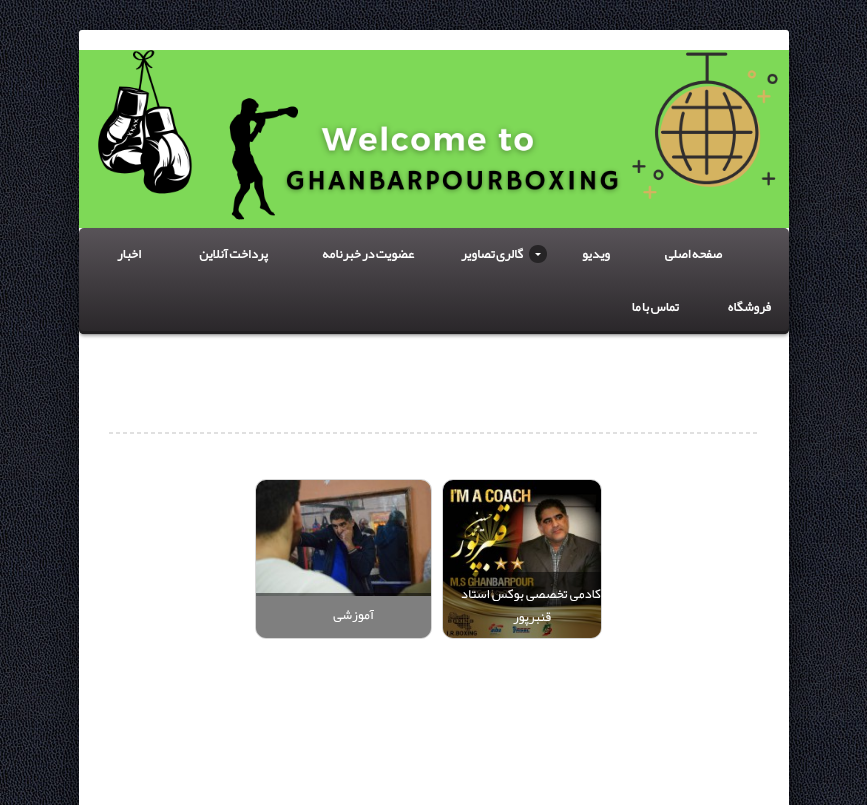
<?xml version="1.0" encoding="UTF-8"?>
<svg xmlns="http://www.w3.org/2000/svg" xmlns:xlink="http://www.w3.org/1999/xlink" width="867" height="805">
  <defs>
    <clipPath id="clip1"><rect x="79" y="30" width="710" height="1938" rx="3" /></clipPath>
    <clipPath id="clip2"><path d="M 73 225 h 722 v 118 h -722 z m 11 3 h 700 c 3 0 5 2 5 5 v 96 c 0 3 -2 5 -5 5 h -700 c -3 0 -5 -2 -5 -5 v -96 c 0 -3 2 -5 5 -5 z" clip-rule="evenodd" /></clipPath>
    <linearGradient id="g1" gradientUnits="userSpaceOnUse" x1="434" y1="228" x2="434" y2="334"><stop offset="0" stop-color="#585358" /><stop offset="1" stop-color="#292629" /></linearGradient>
    <clipPath id="clip3"><rect x="443" y="480" width="158" height="158" rx="10" /></clipPath>
  </defs>
  <rect width="100%" height="100%" fill="#ffffff" />
  <image x="0" y="0" width="867" height="805" xlink:href="image1.png" />
  <rect x="79" y="45" width="710" height="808" rx="3" fill="#000000" fill-opacity="0.5" filter="blur(15px)" />
  <rect x="79" y="30" width="710" height="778" rx="3" fill="#ffffff" />
  <image x="79" y="50" width="710" height="178" xlink:href="image2.png" />
  <g clip-path="url(#clip1)">
    <rect x="77" y="229" width="710" height="106" rx="5" fill="#000000" fill-opacity="0.05" filter="blur(1px)" />
    <rect x="81" y="229" width="710" height="106" rx="5" fill="#000000" fill-opacity="0.05" filter="blur(1px)" />
  </g>
  <g clip-path="url(#clip2)">
    <rect x="79" y="231" width="710" height="106" rx="5" fill="#000000" fill-opacity="0.17" filter="blur(1.5px)" />
  </g>
  <rect x="79" y="230" width="710" height="106" rx="5" fill="#000000" fill-opacity="0.06" filter="blur(1px)" />
  <rect x="79" y="229" width="710" height="106" rx="5" fill="#000000" fill-opacity="0.1" filter="blur(0.5px)" />
  <rect x="79" y="228" width="710" height="106" rx="5" fill="url(#g1)" />
  <path d="M 79 326 v 3 c 0 3 2 5 5 5 h 700 c 3 0 5 -2 5 -5 v -3 c 0 3 -2 5 -5 5 h -700 c -3 0 -5 -2 -5 -5 z" fill="#211f21" />
  <path d="M 538 245 c -12 0 -12 18 0 18 c 12 0 12 -18 0 -18 z" fill="#262426" />
  <path d="M 535 253 h 6 l -3 3 z" fill="#ffffff" />
  <image x="109" y="432" width="648" height="2" xlink:href="image3.png" />
  <rect x="442.5" y="479.5" width="159" height="159" rx="10.5" fill="none" stroke="#d7d7d7" />
  <image x="443" y="480" width="158" height="158" xlink:href="image4.png" />
  <path d="M 443 572 h 158 v 56 c 0 5.5 -4.5 10 -10 10 h -138 c -5.5 0 -10 -4.5 -10 -10 z" fill="#000000" fill-opacity="0.5" />
  <rect x="255.5" y="479.5" width="176" height="159" rx="10.5" fill="none" stroke="#d7d7d7" />
  <image x="256" y="480" width="175" height="116" xlink:href="image5.png" />
  <path d="M 256 593 h 175 v 35 c 0 5.5 -4.5 10 -10 10 h -155 c -5.5 0 -10 -4.5 -10 -10 z" fill="#000000" fill-opacity="0.5" />
  <text x="722" y="258" word-spacing="-1" style="font-family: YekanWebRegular; font-size: 13px; font-weight: bold; letter-spacing: 1px; direction: rtl; fill: #ffffff">صفحه اصلی</text>
  <text x="610" y="258" style="font-family: YekanWebRegular; font-size: 13px; font-weight: bold; letter-spacing: 1px; direction: rtl; fill: #ffffff">ویدیو</text>
  <text x="523" y="258" word-spacing="-1" style="font-family: YekanWebRegular; font-size: 13px; font-weight: bold; letter-spacing: 1px; direction: rtl; fill: #ffffff">گالری تصاویر</text>
  <text x="414" y="258" word-spacing="-1" style="font-family: YekanWebRegular; font-size: 13px; font-weight: bold; letter-spacing: 1px; direction: rtl; fill: #ffffff">عضویت در خبرنامه</text>
  <text x="268" y="258" word-spacing="-1" style="font-family: YekanWebRegular; font-size: 13px; font-weight: bold; letter-spacing: 1px; direction: rtl; fill: #ffffff">پرداخت آنلاین</text>
  <text x="141" y="258" style="font-family: YekanWebRegular; font-size: 13px; font-weight: bold; letter-spacing: 1px; direction: rtl; fill: #ffffff">اخبار</text>
  <text x="771" y="311" style="font-family: YekanWebRegular; font-size: 13px; font-weight: bold; letter-spacing: 1px; direction: rtl; fill: #ffffff">فروشگاه</text>
  <text x="679" y="311" word-spacing="-1" style="font-family: YekanWebRegular; font-size: 13px; font-weight: bold; letter-spacing: 1px; direction: rtl; fill: #ffffff">تماس با ما</text>
  <g clip-path="url(#clip3)">
    <text x="604" y="598" style="font-family: YekanWebRegular; font-size: 13.25px; direction: rtl; fill: #ffffff">اکادمی تخصصی بوکس استاد</text>
  </g>
  <text x="551" y="621" style="font-family: YekanWebRegular; font-size: 13.25px; direction: rtl; fill: #ffffff">قنبرپور</text>
  <text x="374" y="619" style="font-family: YekanWebRegular; font-size: 13.25px; direction: rtl; fill: #ffffff">آموزشی</text>
</svg>
